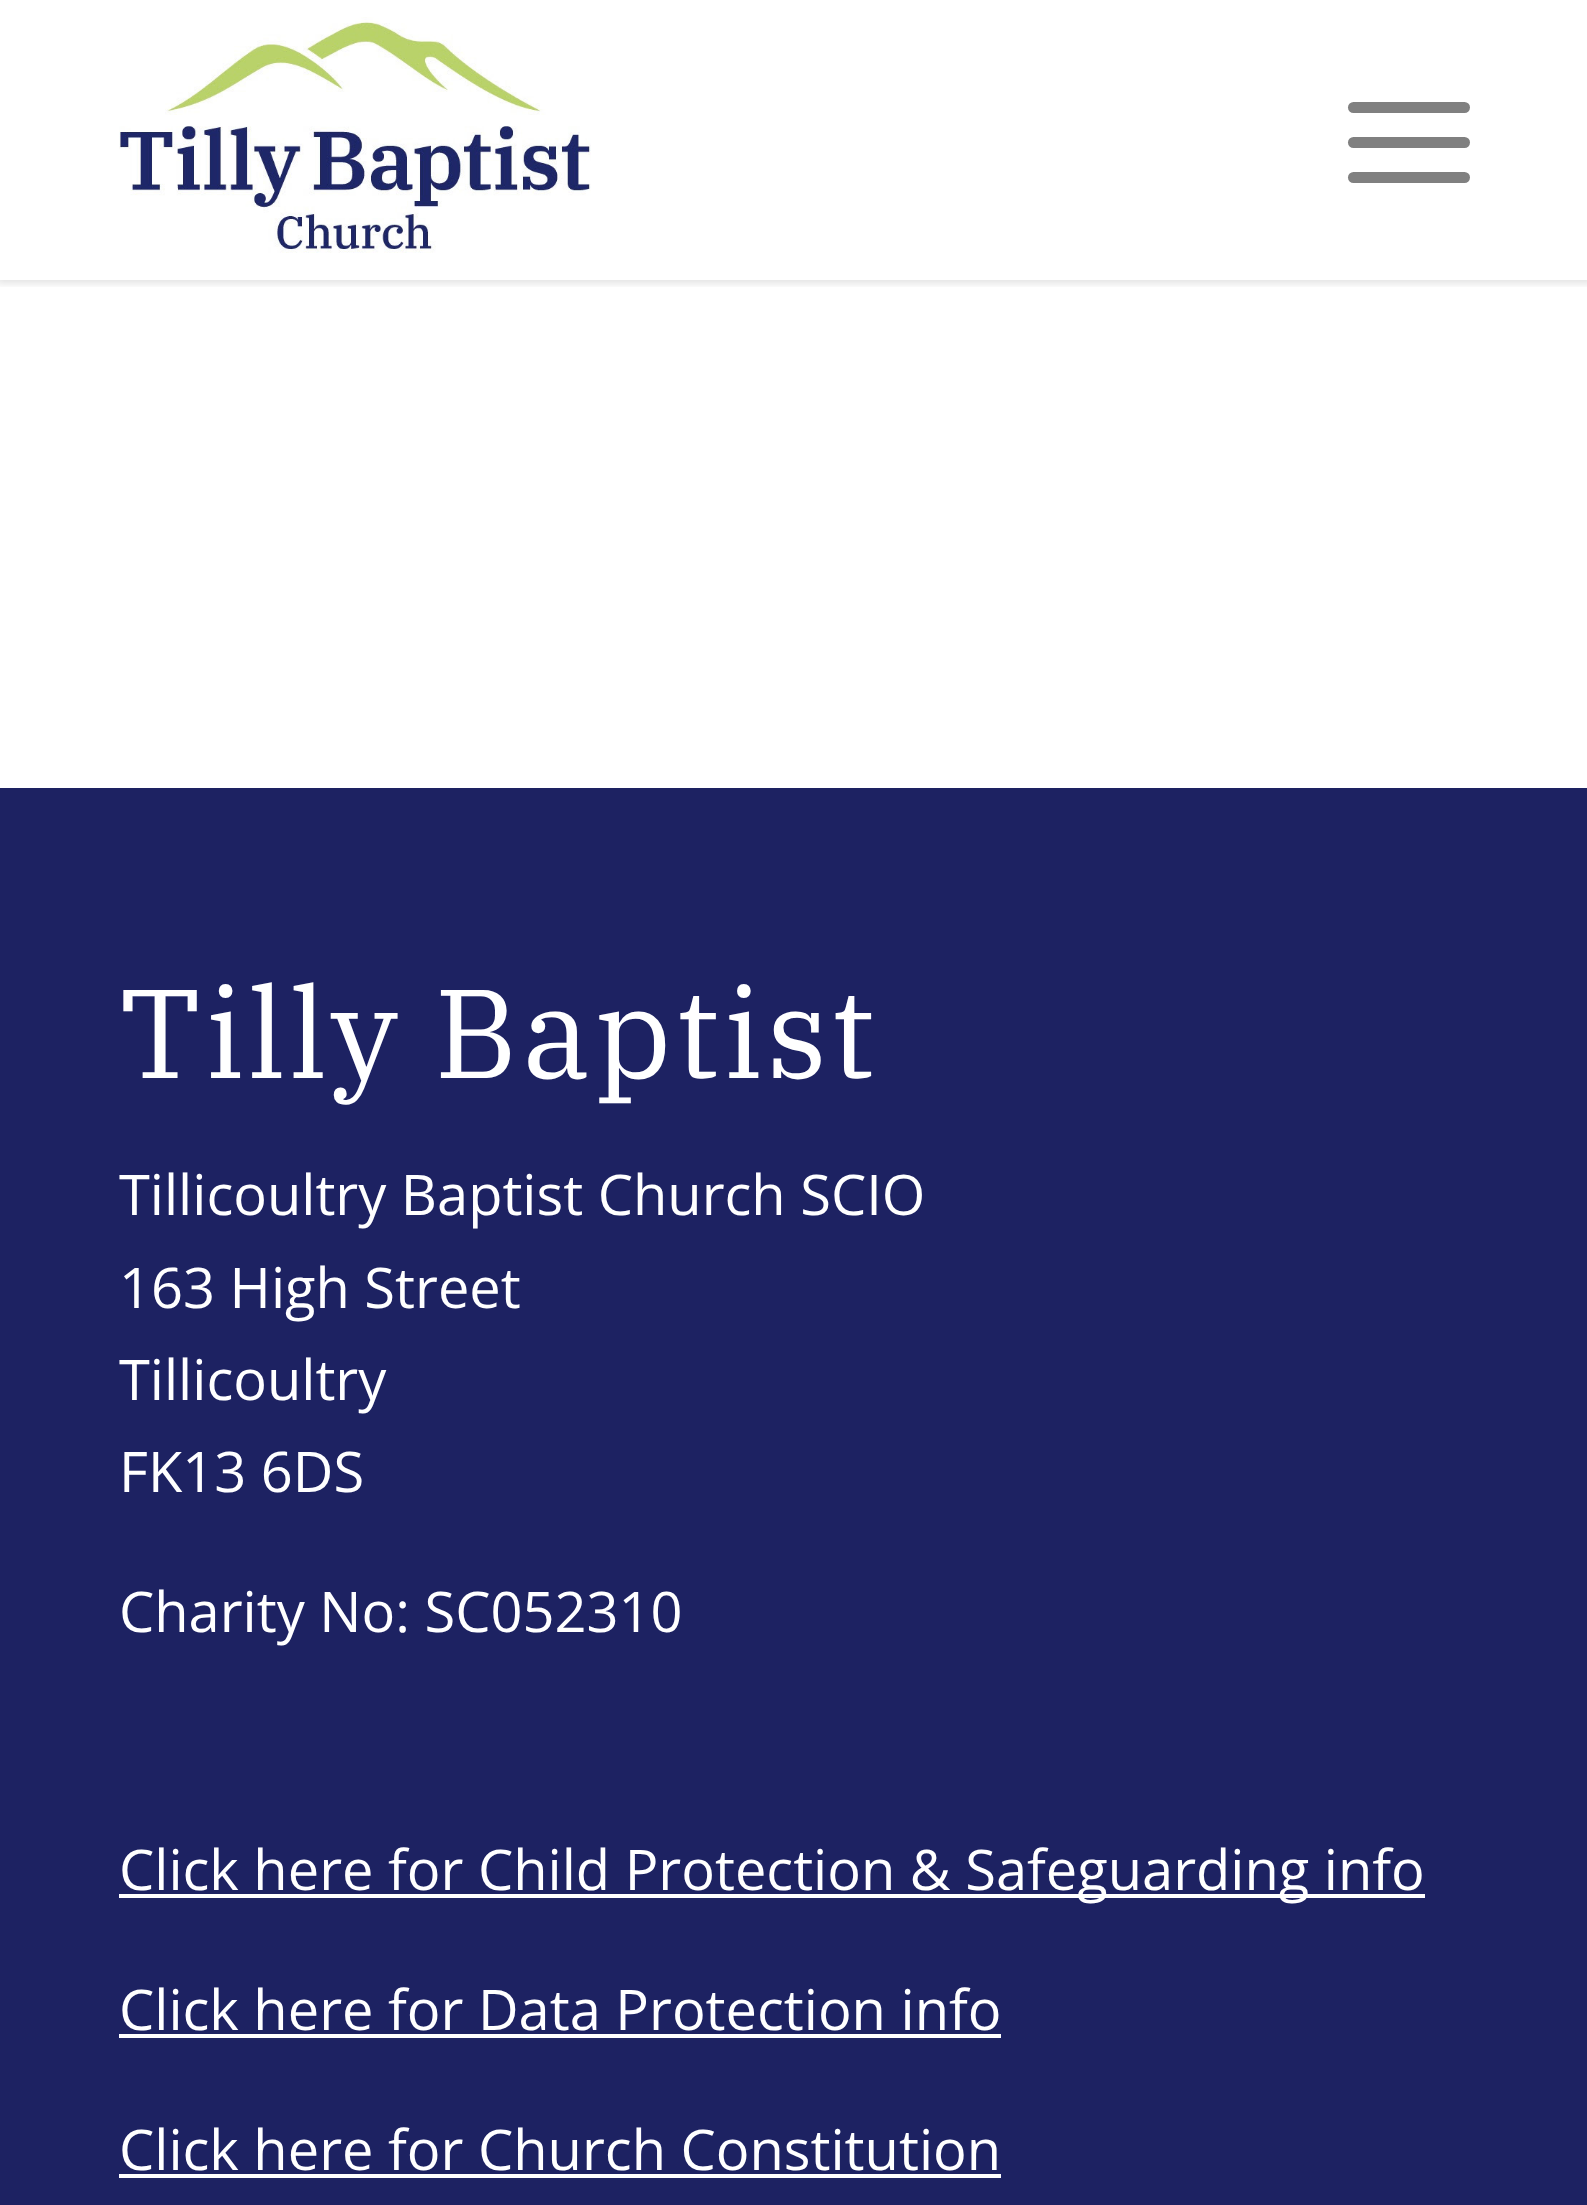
<?xml version="1.0" encoding="UTF-8"?>
<svg xmlns="http://www.w3.org/2000/svg" xmlns:xlink="http://www.w3.org/1999/xlink" width="1587" height="2205">
  <defs>
    <clipPath id="clip1"><rect x="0" y="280" width="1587" height="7" /></clipPath>
  </defs>
  <rect width="100%" height="100%" fill="#ffffff" />
  <g clip-path="url(#clip1)">
    <rect x="-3" y="-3" width="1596" height="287" fill="#000000" fill-opacity="0.1" filter="blur(3.5px)" />
  </g>
  <image x="119" y="17" width="472" height="236" xlink:href="image1.png" />
  <rect x="1348" y="137" width="122" height="11" rx="5.5" fill="#808080" />
  <rect x="1348" y="102" width="122" height="11" rx="5.5" fill="#808080" />
  <rect x="1348" y="172" width="122" height="11" rx="5.5" fill="#808080" />
  <rect y="788" width="1587" height="1417" fill="#1d2262" />
  <rect x="119" y="1894" width="1306" height="4" fill="#ffffff" />
  <rect x="119" y="2034" width="882" height="4" fill="#ffffff" />
  <rect x="119" y="2174" width="882" height="4" fill="#ffffff" />
  <text x="119" y="1078" style="font-family: IBM Plex Serif; font-size: 126px; letter-spacing: 3.5px; fill: #ffffff">Tilly Baptist</text>
  <text x="119" y="1215" style="font-family: Open Sans; font-size: 56px; fill: #ffffff">Tillicoultry Baptist Church SCIO</text>
  <text x="119" y="1308" style="font-family: Open Sans; font-size: 56px; fill: #ffffff">163 High Street</text>
  <text x="119" y="1400" style="font-family: Open Sans; font-size: 56px; fill: #ffffff">Tillicoultry</text>
  <text x="119" y="1492" style="font-family: Open Sans; font-size: 56px; fill: #ffffff">FK13 6DS</text>
  <text x="119" y="1632" style="font-family: Open Sans; font-size: 56px; fill: #ffffff">Charity No: SC052310</text>
  <text x="119" y="1890" style="font-family: Open Sans; font-size: 56px; fill: #ffffff">Click here for Child Protection &amp; Safeguarding info</text>
  <text x="119" y="2030" style="font-family: Open Sans; font-size: 56px; fill: #ffffff">Click here for Data Protection info</text>
  <text x="119" y="2170" style="font-family: Open Sans; font-size: 56px; fill: #ffffff">Click here for Church Constitution</text>
</svg>
